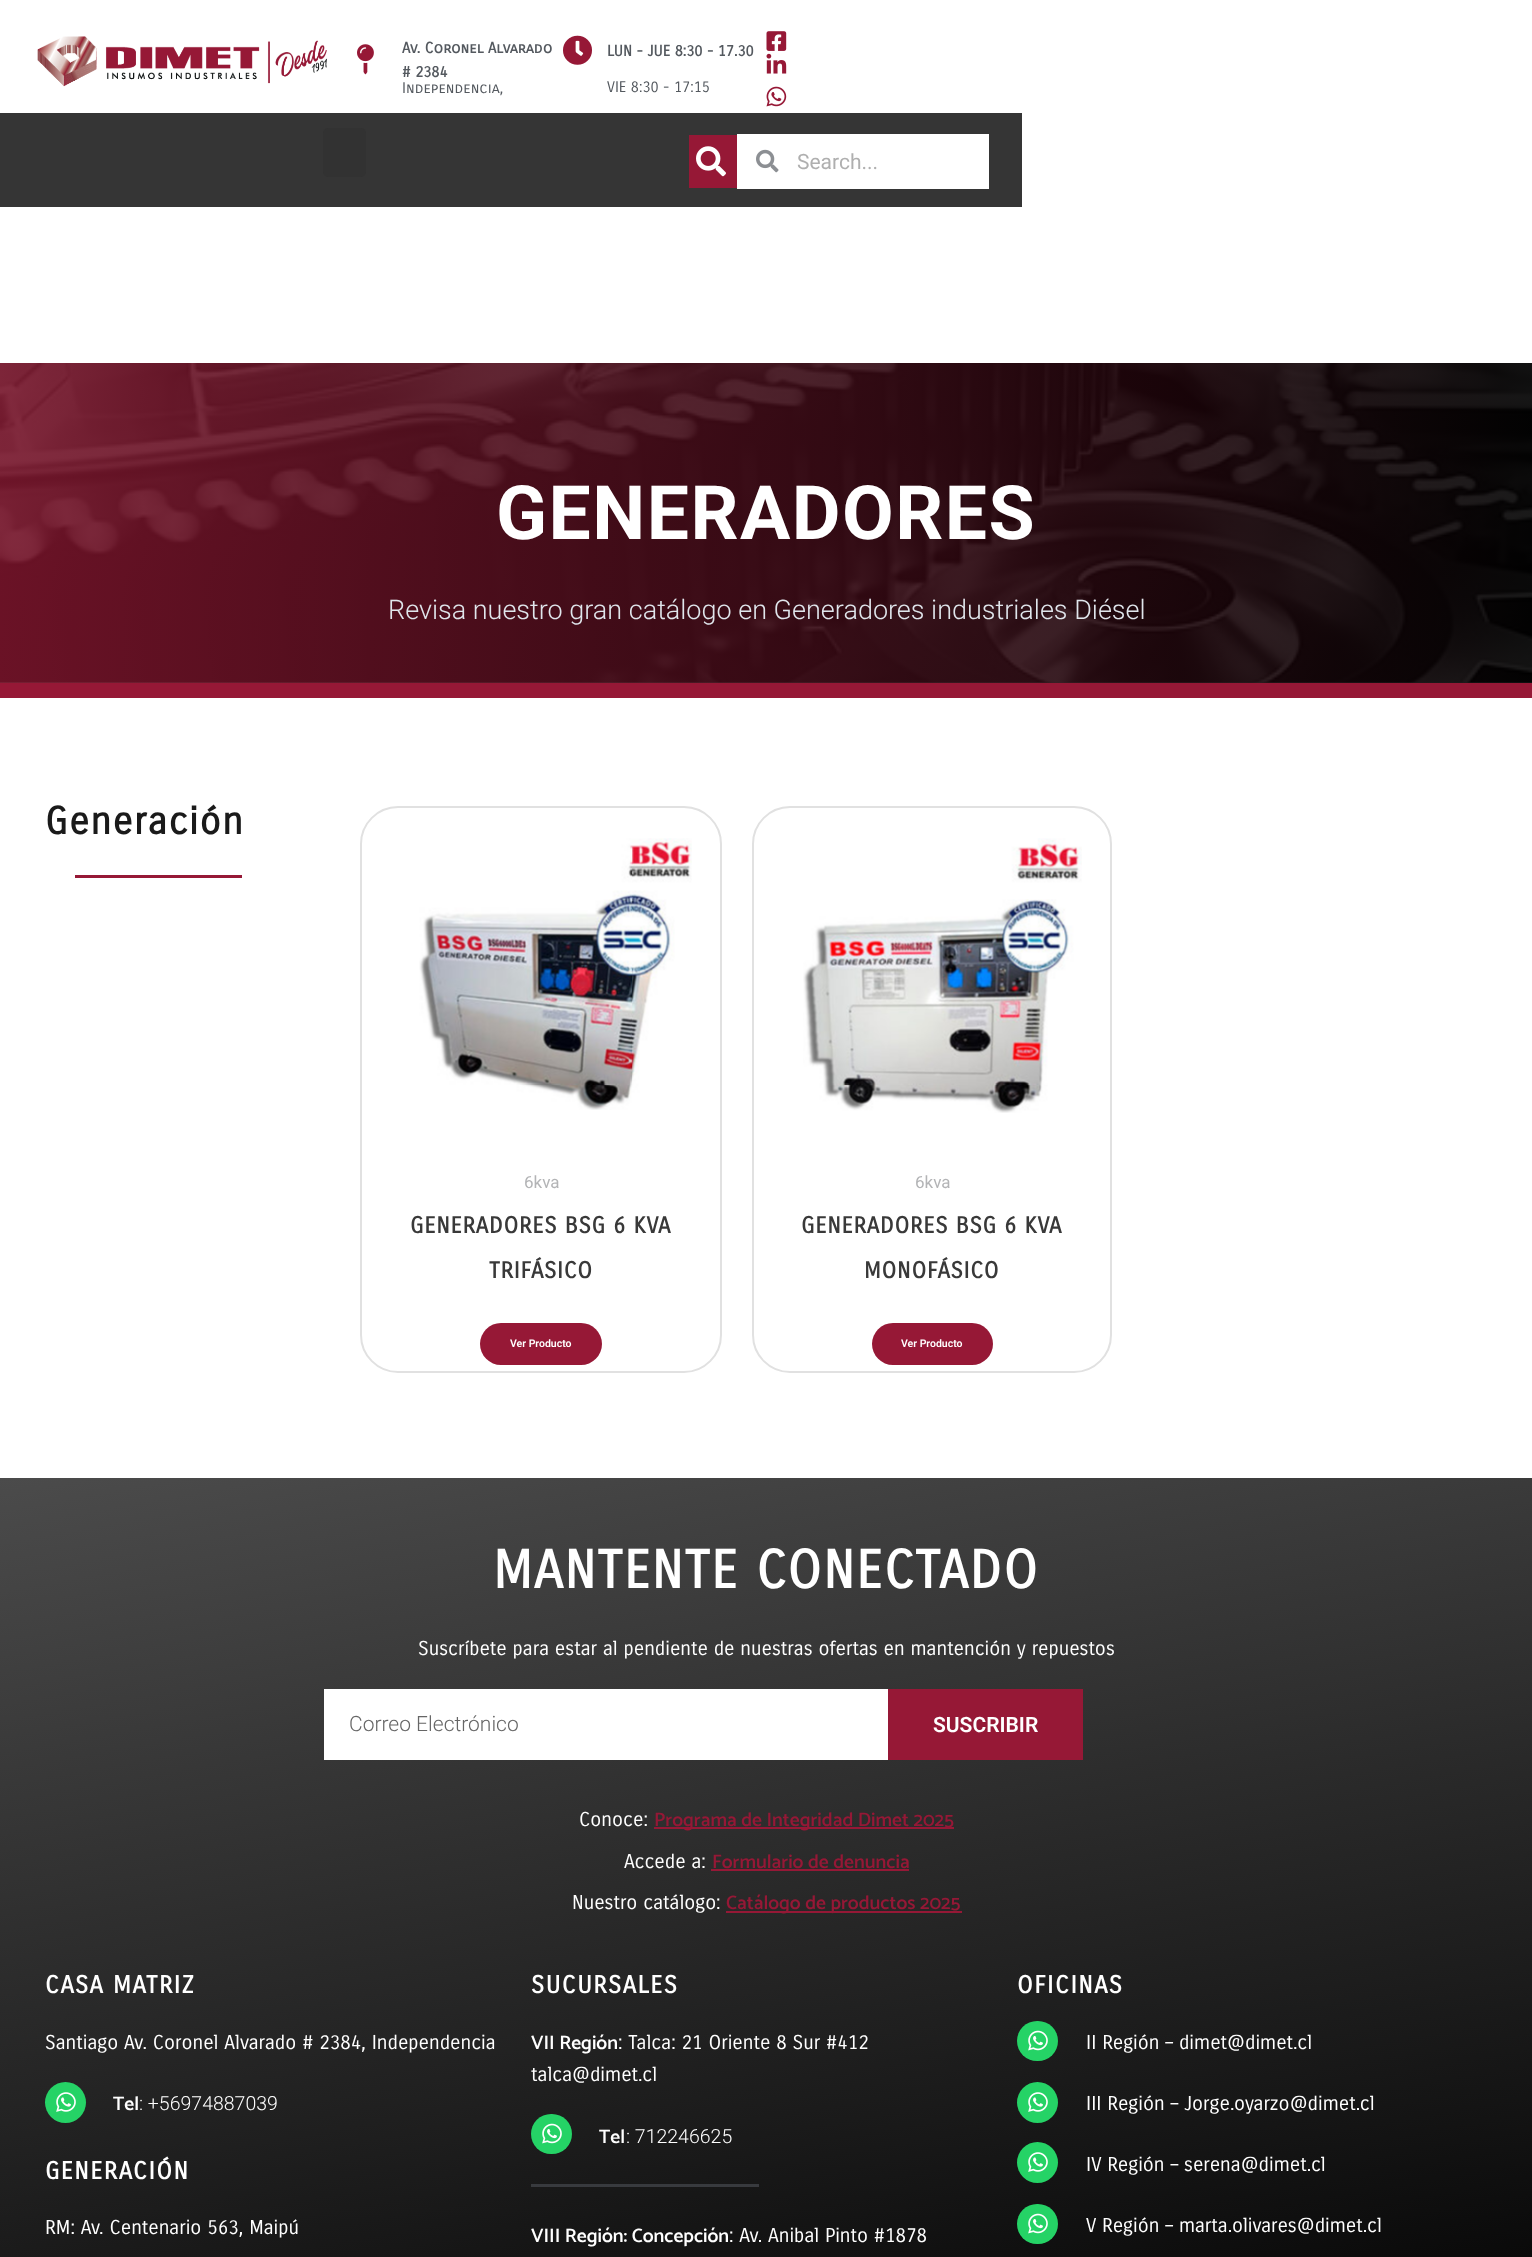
<?xml version="1.0" encoding="UTF-8"?>
<svg xmlns="http://www.w3.org/2000/svg" xmlns:xlink="http://www.w3.org/1999/xlink" width="1532" height="2257">
  <defs>
    <linearGradient id="g1" gradientUnits="userSpaceOnUse" x1="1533" y1="523" x2="0" y2="523"><stop offset="0" stop-color="#000000" stop-opacity="0.9" /><stop offset="1" stop-color="#751329" stop-opacity="0.9" /></linearGradient>
    <linearGradient id="g2" gradientUnits="userSpaceOnUse" x1="888" y1="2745" x2="645" y2="1364"><stop offset="0.15" stop-color="#000000" /><stop offset="1" stop-color="#4b4b4b" /></linearGradient>
  </defs>
  <rect width="100%" height="100%" fill="#ffffff" />
  <image x="37" y="36" width="290" height="51" xlink:href="image1.png" />
  <image x="357" y="44" width="17" height="31" xlink:href="image2.png" />
  <image x="563" y="35" width="29" height="30" xlink:href="image3.png" />
  <image x="766" y="31" width="21" height="20" xlink:href="image4.png" />
  <image x="766" y="53" width="21" height="21" xlink:href="image5.png" />
  <image x="766" y="86" width="21" height="21" xlink:href="image6.png" />
  <rect y="113" width="1022" height="94" fill="#353535" />
  <rect x="323" y="128" width="43" height="49" rx="5" fill="#323232" />
  <rect x="689" y="135" width="48" height="53" fill="#961836" />
  <image x="696" y="146" width="30" height="31" xlink:href="image7.png" />
  <rect x="737" y="134" width="252" height="55" fill="#ffffff" />
  <image x="756" y="149" width="23" height="24" xlink:href="image8.png" />
  <rect y="683" width="1532" height="15" fill="#961836" />
  <image x="0" y="363" width="1532" height="320" xlink:href="image9.png" />
  <rect y="363" width="1532" height="320" fill="url(#g1)" />
  <rect x="75" y="875" width="167" height="3" fill="#961836" />
  <rect x="361" y="807" width="360" height="565" rx="37" fill="none" stroke="#e1e1e1" stroke-width="2" />
  <image x="419" y="838" width="273" height="272" xlink:href="image10.png" />
  <rect x="480" y="1323" width="122" height="42" rx="21" fill="#961836" />
  <rect x="753" y="807" width="358" height="565" rx="37" fill="none" stroke="#e1e1e1" stroke-width="2" />
  <image x="803" y="838" width="279" height="275" xlink:href="image11.png" />
  <rect x="872" y="1323" width="121" height="42" rx="21" fill="#961836" />
  <rect y="1478" width="1532" height="779" fill="url(#g2)" />
  <rect x="324" y="1689" width="564" height="71" fill="#ffffff" />
  <rect x="888" y="1689" width="195" height="71" fill="#961836" />
  <rect x="654" y="1827" width="300" height="2" fill="#951836" />
  <rect x="711" y="1869" width="198" height="2" fill="#951836" />
  <rect x="726" y="1911" width="236" height="2" fill="#951836" />
  <circle cx="65.5" cy="2102.5" r="20.5" fill="#25d366" />
  <image x="56" y="2092" width="20" height="20" xlink:href="image12.png" />
  <rect x="531" y="2114" width="41" height="40" rx="20" fill="#25d366" />
  <image x="542" y="2123" width="20" height="21" xlink:href="image13.png" />
  <rect x="531" y="2184" width="228" height="3" fill="#383a3e" />
  <rect x="1017" y="2021" width="41" height="40" rx="20" fill="#25d366" />
  <image x="1028" y="2030" width="20" height="21" xlink:href="image13.png" />
  <circle cx="1037.5" cy="2102.5" r="20.5" fill="#25d366" />
  <image x="1028" y="2092" width="20" height="20" xlink:href="image12.png" />
  <circle cx="1037.5" cy="2162.5" r="20.5" fill="#25d366" />
  <image x="1028" y="2152" width="20" height="20" xlink:href="image12.png" />
  <rect x="1017" y="2204" width="41" height="40" rx="20" fill="#25d366" />
  <image x="1028" y="2213" width="20" height="21" xlink:href="image13.png" />
  <text x="402" y="53" style="font-family: Carrois Gothic SC; font-size: 15px; font-weight: bold; fill: #54595f">Av. Coronel Alvarado</text>
  <text x="402" y="77" style="font-family: Carrois Gothic SC; font-size: 15px; font-weight: bold; fill: #54595f"># 2384</text>
  <text x="402" y="93" style="font-family: Carrois Gothic SC; font-size: 15px; fill: #54595f">Independencia,</text>
  <text x="607" y="56" style="font-family: Carrois Gothic SC; font-size: 15px; font-weight: bold; fill: #54595f">LUN - JUE 8:30 - 17.30</text>
  <text x="607" y="92" style="font-family: Carrois Gothic SC; font-size: 15px; fill: #54595f">VIE 8:30 - 17:15</text>
  <text x="797" y="169" style="font-family: Roboto; font-size: 21px; fill: #afafaf">Search...</text>
  <text x="496" y="539" style="font-family: Roboto; font-size: 75px; font-weight: bold; letter-spacing: 1.5px; fill: #ffffff">GENERADORES</text>
  <text x="388" y="619" style="font-family: Roboto; font-size: 27px; font-weight: 300; fill: #e0e6ec">Revisa nuestro gran catálogo en Generadores industriales Diésel</text>
  <text x="45" y="834" style="font-family: Carrois Gothic; font-size: 37.5px; font-weight: bold; letter-spacing: 1.5px; fill: #1a1a1a">Generación</text>
  <text x="524" y="1188" style="font-family: Roboto; font-size: 17px; fill: #b3b4b6">6kva</text>
  <text x="410" y="1233" style="font-family: Carrois Gothic; font-size: 22.5px; font-weight: bold; letter-spacing: 0.75px; fill: #393939">GENERADORES BSG 6 KVA</text>
  <text x="489" y="1278" style="font-family: Carrois Gothic; font-size: 22.5px; font-weight: bold; letter-spacing: 0.75px; fill: #393939">TRIFÁSICO</text>
  <text x="510" y="1347" style="font-family: Roboto; font-size: 10.5px; font-weight: 600; fill: #ffffff">Ver Producto</text>
  <text x="915" y="1188" style="font-family: Roboto; font-size: 17px; fill: #b3b4b6">6kva</text>
  <text x="801" y="1233" style="font-family: Carrois Gothic; font-size: 22.5px; font-weight: bold; letter-spacing: 0.75px; fill: #393939">GENERADORES BSG 6 KVA</text>
  <text x="864" y="1278" style="font-family: Carrois Gothic; font-size: 22.5px; font-weight: bold; letter-spacing: 0.75px; fill: #393939">MONOFÁSICO</text>
  <text x="901" y="1347" style="font-family: Roboto; font-size: 10.5px; font-weight: 600; fill: #ffffff">Ver Producto</text>
  <text x="493" y="1588" style="font-family: Carrois Gothic; font-size: 52.5px; font-weight: bold; letter-spacing: 1.5px; fill: #ffffff">MANTENTE CONECTADO</text>
  <text x="418" y="1655" style="font-family: Carrois Gothic; font-size: 19.5px; fill: #ffffff">Suscríbete para estar al pendiente de nuestras ofertas en mantención y repuestos</text>
  <text x="349" y="1731" style="font-family: Roboto; font-size: 21px; font-weight: 300; fill: #666666">Correo Electrónico</text>
  <text x="933" y="1732" style="font-family: Roboto; font-size: 21px; font-weight: 600; fill: #ffffff">SUSCRIBIR</text>
  <text x="579" y="1826" style="font-family: Carrois Gothic; font-size: 19.5px; fill: #ffffff">Conoce:</text>
  <text x="654" y="1826" style="font-family: Catamaran; font-size: 19.5px; font-weight: 600; fill: #951836">Programa de Integridad Dimet 2025</text>
  <text x="624" y="1868" style="font-family: Carrois Gothic; font-size: 19.5px; fill: #ffffff">Accede a:</text>
  <text x="712" y="1868" style="font-family: Catamaran; font-size: 19.5px; font-weight: 600; fill: #951836">Formulario de denuncia</text>
  <text x="572" y="1909" style="font-family: Carrois Gothic; font-size: 19.5px; fill: #ffffff">Nuestro catálogo:</text>
  <text x="726" y="1909" style="font-family: Catamaran; font-size: 19.5px; font-weight: 600; fill: #951836">Catálogo de productos 2025</text>
  <text x="45" y="1993" style="font-family: Carrois Gothic; font-size: 24px; font-weight: bold; letter-spacing: 1.5px; fill: #ffffff">CASA MATRIZ</text>
  <text x="45" y="2049" style="font-family: Carrois Gothic; font-size: 19.5px; fill: #ffffff">Santiago Av. Coronel Alvarado # 2384, Independencia</text>
  <text x="113" y="2110" style="font-family: Catamaran; font-size: 19.5px; font-weight: 600; fill: #ffffff">Tel</text>
  <text x="139" y="2110" style="font-family: Roboto; font-size: 19.5px; font-weight: 300; fill: #ffffff">: +56974887039</text>
  <text x="45" y="2179" style="font-family: Carrois Gothic; font-size: 24px; font-weight: bold; letter-spacing: 1.5px; fill: #ffffff">GENERACIÓN</text>
  <text x="45" y="2234" style="font-family: Carrois Gothic; font-size: 19.5px; fill: #ffffff">RM: Av. Centenario 563, Maipú</text>
  <text x="531" y="1993" style="font-family: Carrois Gothic; font-size: 24px; font-weight: bold; letter-spacing: 1.5px; fill: #ffffff">SUCURSALES</text>
  <text x="531" y="2049" style="font-family: Catamaran; font-size: 19.5px; font-weight: 600; fill: #ffffff">VII Región</text>
  <text x="618" y="2049" style="font-family: Carrois Gothic; font-size: 19.5px; fill: #ffffff">: Talca: 21 Oriente 8 Sur #412</text>
  <text x="531" y="2081" style="font-family: Carrois Gothic; font-size: 19.5px; fill: #ffffff">talca@dimet.cl</text>
  <text x="599" y="2143" style="font-family: Catamaran; font-size: 19.5px; font-weight: 600; fill: #ffffff">Tel</text>
  <text x="626" y="2143" style="font-family: Roboto; font-size: 19.5px; font-weight: 300; fill: #ffffff">: 712246625</text>
  <text x="531" y="2242" style="font-family: Catamaran; font-size: 19.5px; font-weight: 600; fill: #ffffff">VIII Región: Concepción</text>
  <text x="729" y="2242" style="font-family: Carrois Gothic; font-size: 19.5px; fill: #ffffff">: Av. Anibal Pinto #1878</text>
  <text x="1017" y="1993" style="font-family: Carrois Gothic; font-size: 24px; font-weight: bold; letter-spacing: 1.5px; fill: #ffffff">OFICINAS</text>
  <text x="1086" y="2049" style="font-family: Carrois Gothic; font-size: 19.5px; fill: #ffffff">II Región – dimet@dimet.cl</text>
  <text x="1086" y="2110" style="font-family: Carrois Gothic; font-size: 19.5px; fill: #ffffff">III Región – Jorge.oyarzo@dimet.cl</text>
  <text x="1086" y="2171" style="font-family: Carrois Gothic; font-size: 19.5px; fill: #ffffff">IV Región – serena@dimet.cl</text>
  <text x="1086" y="2232" style="font-family: Carrois Gothic; font-size: 19.5px; fill: #ffffff">V Región – marta.olivares@dimet.cl</text>
</svg>
